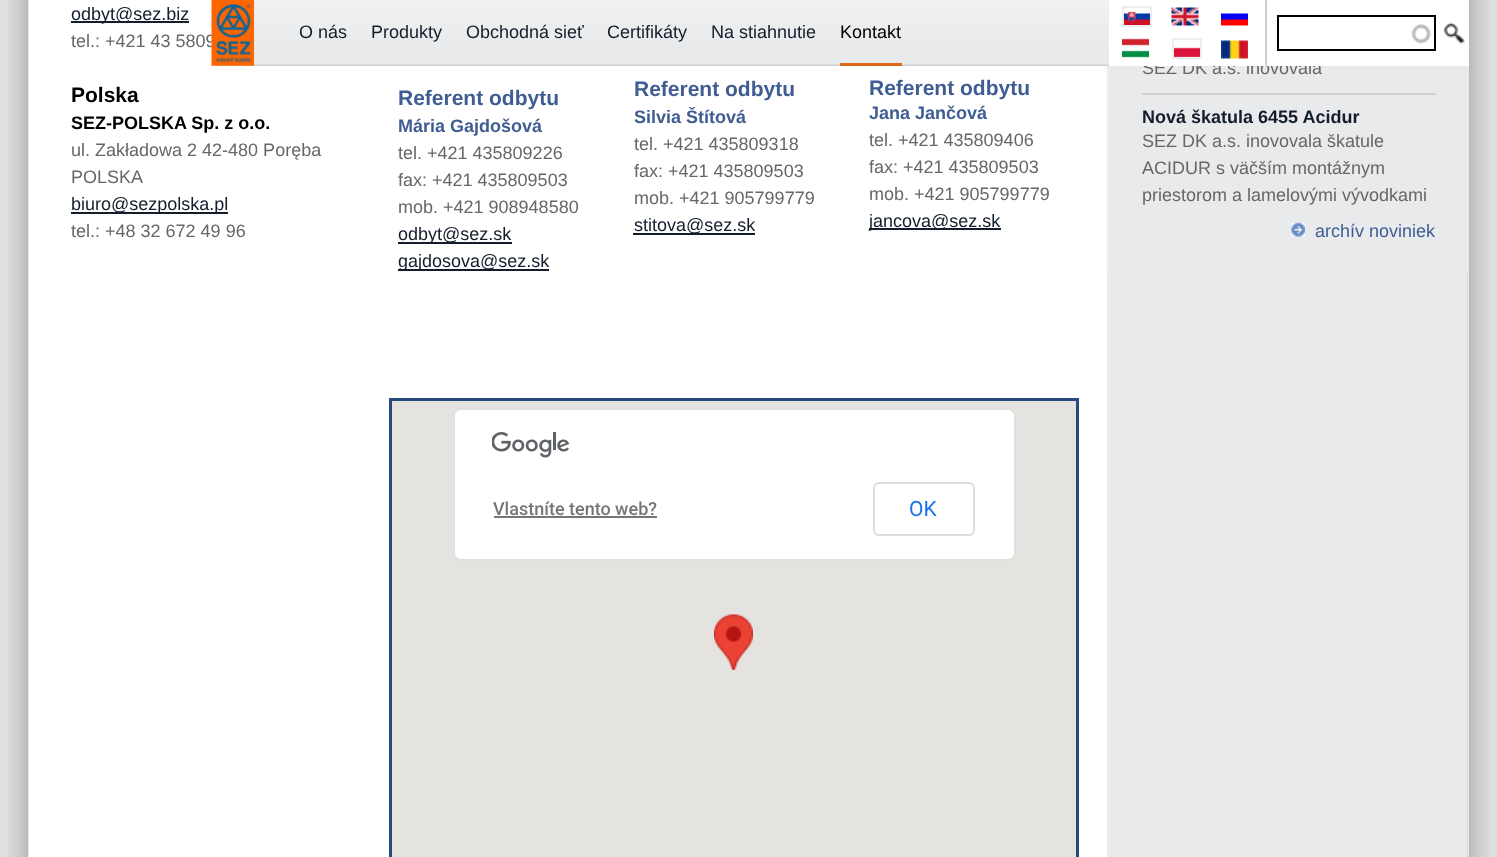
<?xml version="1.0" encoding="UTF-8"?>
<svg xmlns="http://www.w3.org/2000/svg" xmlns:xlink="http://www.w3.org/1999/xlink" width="1497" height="857">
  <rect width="100%" height="100%" fill="#dfdfdf" />
  <image x="8" y="0" width="1481" height="857" xlink:href="image1.png" />
  <rect x="1468" y="272" width="1" height="585" fill="#ffffff" />
  <image x="28" y="0" width="1441" height="857" xlink:href="image2.png" />
  <rect x="71" y="21" width="118" height="2" fill="#141d2b" />
  <rect x="71" y="212" width="157" height="2" fill="#141d2b" />
  <rect x="398" y="242" width="114" height="2" fill="#141d2b" />
  <rect x="398" y="269" width="151" height="2" fill="#141d2b" />
  <rect x="633" y="233" width="122" height="2" fill="#141d2b" />
  <rect x="869" y="228" width="132" height="2" fill="#141d2b" />
  <rect x="390.5" y="399.5" width="687" height="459" fill="none" stroke="#27497d" stroke-width="3" />
  <rect x="392" y="401" width="684" height="456" fill="#e5e3df" />
  <image x="714" y="614" width="39" height="56" xlink:href="image3.png" />
  <rect x="453" y="408" width="563" height="153" rx="8" fill="#ffffff" />
  <rect x="454" y="409" width="561" height="151" rx="7" fill="none" stroke="#000000" stroke-opacity="0.12" stroke-width="2" />
  <image x="492" y="432" width="78" height="26" xlink:href="image4.png" />
  <rect x="494" y="516" width="163" height="2" fill="#757575" />
  <rect x="874" y="483" width="100" height="52" rx="5" fill="none" stroke="#dadce0" stroke-width="2" />
  <rect x="1109" y="66" width="360" height="206" fill="#e9eaec" />
  <rect x="1142" y="93" width="294" height="2" fill="#cfd0d1" />
  <image x="1291" y="222" width="14" height="15" xlink:href="image5.png" />
  <image x="254" y="0" width="855" height="66" xlink:href="image7.png" />
  <rect x="840" y="63" width="62" height="3" fill="#e06618" />
  <text x="71" y="20" style="font-family: Liberation Sans; font-size: 18px; fill: #141d2b">odbyt@sez.biz</text>
  <text x="71" y="47" style="font-family: Liberation Sans; font-size: 18px; fill: #676767">tel.: +421 43 5809</text>
  <text x="71" y="102" style="font-family: Liberation Sans; font-size: 21px; font-weight: bold; fill: #000000">Polska</text>
  <text x="71" y="129" style="font-family: Liberation Sans; font-size: 18px; font-weight: bold; fill: #000000">SEZ-POLSKA Sp. z o.o.</text>
  <text x="71" y="156" style="font-family: Liberation Sans; font-size: 18px; fill: #676767">ul. Zakładowa 2 42-480 Poręba</text>
  <text x="71" y="183" style="font-family: Liberation Sans; font-size: 18px; fill: #676767">POLSKA</text>
  <text x="71" y="210" style="font-family: Liberation Sans; font-size: 18px; fill: #141d2b">biuro@sezpolska.pl</text>
  <text x="71" y="237" style="font-family: Liberation Sans; font-size: 18px; fill: #676767">tel.: +48 32 672 49 96</text>
  <text x="398" y="105" style="font-family: Liberation Sans; font-size: 21px; font-weight: bold; fill: #3f5d93">Referent odbytu</text>
  <text x="398" y="132" style="font-family: Liberation Sans; font-size: 18px; font-weight: bold; fill: #3f5d93">Mária Gajdošová</text>
  <text x="398" y="159" style="font-family: Liberation Sans; font-size: 18px; fill: #676767">tel. +421 435809226</text>
  <text x="398" y="186" style="font-family: Liberation Sans; font-size: 18px; fill: #676767">fax: +421 435809503</text>
  <text x="398" y="213" style="font-family: Liberation Sans; font-size: 18px; fill: #676767">mob. +421 908948580</text>
  <text x="398" y="240" style="font-family: Liberation Sans; font-size: 18px; fill: #141d2b">odbyt@sez.sk</text>
  <text x="398" y="267" style="font-family: Liberation Sans; font-size: 18px; fill: #141d2b">gajdosova@sez.sk</text>
  <text x="634" y="96" style="font-family: Liberation Sans; font-size: 21px; font-weight: bold; fill: #3f5d93">Referent odbytu</text>
  <text x="634" y="123" style="font-family: Liberation Sans; font-size: 18px; font-weight: bold; fill: #3f5d93">Silvia Štítová</text>
  <text x="634" y="150" style="font-family: Liberation Sans; font-size: 18px; fill: #676767">tel. +421 435809318</text>
  <text x="634" y="177" style="font-family: Liberation Sans; font-size: 18px; fill: #676767">fax: +421 435809503</text>
  <text x="634" y="204" style="font-family: Liberation Sans; font-size: 18px; fill: #676767">mob. +421 905799779</text>
  <text x="634" y="231" style="font-family: Liberation Sans; font-size: 18px; fill: #141d2b">stitova@sez.sk</text>
  <text x="869" y="95" style="font-family: Liberation Sans; font-size: 21px; font-weight: bold; fill: #3f5d93">Referent odbytu</text>
  <text x="869" y="119" style="font-family: Liberation Sans; font-size: 18px; font-weight: bold; fill: #3f5d93">Jana Jančová</text>
  <text x="869" y="146" style="font-family: Liberation Sans; font-size: 18px; fill: #676767">tel. +421 435809406</text>
  <text x="869" y="173" style="font-family: Liberation Sans; font-size: 18px; fill: #676767">fax: +421 435809503</text>
  <text x="869" y="200" style="font-family: Liberation Sans; font-size: 18px; fill: #676767">mob. +421 905799779</text>
  <text x="869" y="227" style="font-family: Liberation Sans; font-size: 18px; fill: #141d2b">jancova@sez.sk</text>
  <text x="493" y="515" style="font-family: Roboto; font-size: 18px; font-weight: 500; fill: #757575">Vlastníte tento web?</text>
  <text x="909" y="516" style="font-family: Roboto; font-size: 21px; fill: #1a73e8">OK</text>
  <text x="1142" y="74" style="font-family: Liberation Sans; font-size: 18px; fill: #676767">SEZ DK a.s. inovovala</text>
  <text x="1142" y="123" style="font-family: Liberation Sans; font-size: 18px; font-weight: bold; fill: #141d2b">Nová škatula 6455 Acidur</text>
  <text x="1142" y="147" style="font-family: Liberation Sans; font-size: 18px; fill: #676767">SEZ DK a.s. inovovala škatule</text>
  <text x="1142" y="174" style="font-family: Liberation Sans; font-size: 18px; fill: #676767">ACIDUR s väčším montážnym</text>
  <text x="1142" y="201" style="font-family: Liberation Sans; font-size: 18px; fill: #676767">priestorom a lamelovými vývodkami</text>
  <text x="1315" y="237" style="font-family: Liberation Sans; font-size: 18px; fill: #3f5d93">archív noviniek</text>
  <image x="211" y="0" width="43" height="66" xlink:href="image6.png" />
  <text x="299" y="38" style="font-family: Liberation Sans; font-size: 18px; fill: #141d2b">O nás</text>
  <text x="371" y="38" style="font-family: Liberation Sans; font-size: 18px; fill: #141d2b">Produkty</text>
  <text x="466" y="38" style="font-family: Liberation Sans; font-size: 18px; fill: #141d2b">Obchodná sieť</text>
  <text x="607" y="38" style="font-family: Liberation Sans; font-size: 18px; fill: #141d2b">Certifikáty</text>
  <text x="711" y="38" style="font-family: Liberation Sans; font-size: 18px; fill: #141d2b">Na stiahnutie</text>
  <text x="840" y="38" style="font-family: Liberation Sans; font-size: 18px; fill: #000000">Kontakt</text>
  <rect x="1109" width="360" height="66" fill="#ffffff" />
  <image x="1124" y="11" width="26" height="14" xlink:href="image8.png" />
  <rect x="1123" y="7" width="28" height="19" fill="none" stroke="#eeeeee" stroke-width="2" />
  <image x="1171" y="7" width="28" height="19" xlink:href="image9.png" />
  <image x="1221" y="13" width="27" height="13" xlink:href="image10.png" />
  <image x="1122" y="38" width="27" height="20" xlink:href="image11.png" />
  <image x="1174" y="47" width="26" height="10" xlink:href="image12.png" />
  <rect x="1173" y="39" width="28" height="19" fill="none" stroke="#eeeeee" stroke-width="2" />
  <image x="1221" y="40" width="27" height="19" xlink:href="image13.png" />
  <rect x="1265" width="2" height="66" fill="#cfd0d1" />
  <image x="1411" y="24" width="21" height="20" xlink:href="image14.png" />
  <rect x="1278" y="16" width="157" height="34" fill="none" stroke="#000000" stroke-width="2" />
  <image x="1443" y="22" width="22" height="22" xlink:href="image15.png" />
</svg>
